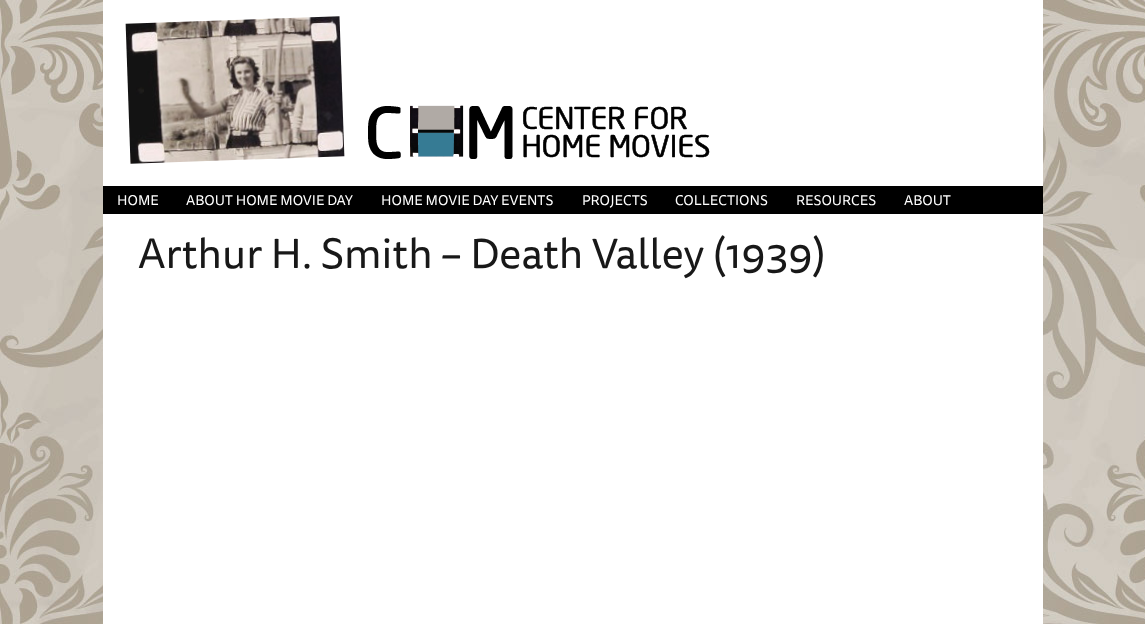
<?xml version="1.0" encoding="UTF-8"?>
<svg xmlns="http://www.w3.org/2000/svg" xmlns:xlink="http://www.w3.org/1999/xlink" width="1145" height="624">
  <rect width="100%" height="100%" fill="#ffffff" />
  <image x="0" y="0" width="1145" height="624" xlink:href="image1.png" />
  <rect x="103" width="940" height="186" fill="#ffffff" />
  <image x="125" y="16" width="220" height="148" xlink:href="image2.png" />
  <image x="368" y="105" width="342" height="54" xlink:href="image3.png" />
  <rect x="103" y="186" width="940" height="28" fill="#000000" />
  <rect x="103" y="214" width="940" height="410" fill="#ffffff" />
  <text x="117" y="205" style="font-family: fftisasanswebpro; font-size: 14px; fill: #ffffff">HOME</text>
  <text x="186" y="205" style="font-family: fftisasanswebpro; font-size: 14px; fill: #ffffff">ABOUT HOME MOVIE DAY</text>
  <text x="381" y="205" style="font-family: fftisasanswebpro; font-size: 14px; fill: #ffffff">HOME MOVIE DAY EVENTS</text>
  <text x="582" y="205" style="font-family: fftisasanswebpro; font-size: 14px; fill: #ffffff">PROJECTS</text>
  <text x="675" y="205" style="font-family: fftisasanswebpro; font-size: 14px; fill: #ffffff">COLLECTIONS</text>
  <text x="796" y="205" style="font-family: fftisasanswebpro; font-size: 14px; fill: #ffffff">RESOURCES</text>
  <text x="904" y="205" style="font-family: fftisasanswebpro; font-size: 14px; fill: #ffffff">ABOUT</text>
  <text x="138" y="268" style="font-family: fftisasanswebpro; font-size: 42px; fill: #181818">Arthur H. Smith – Death Valley (1939)</text>
</svg>
